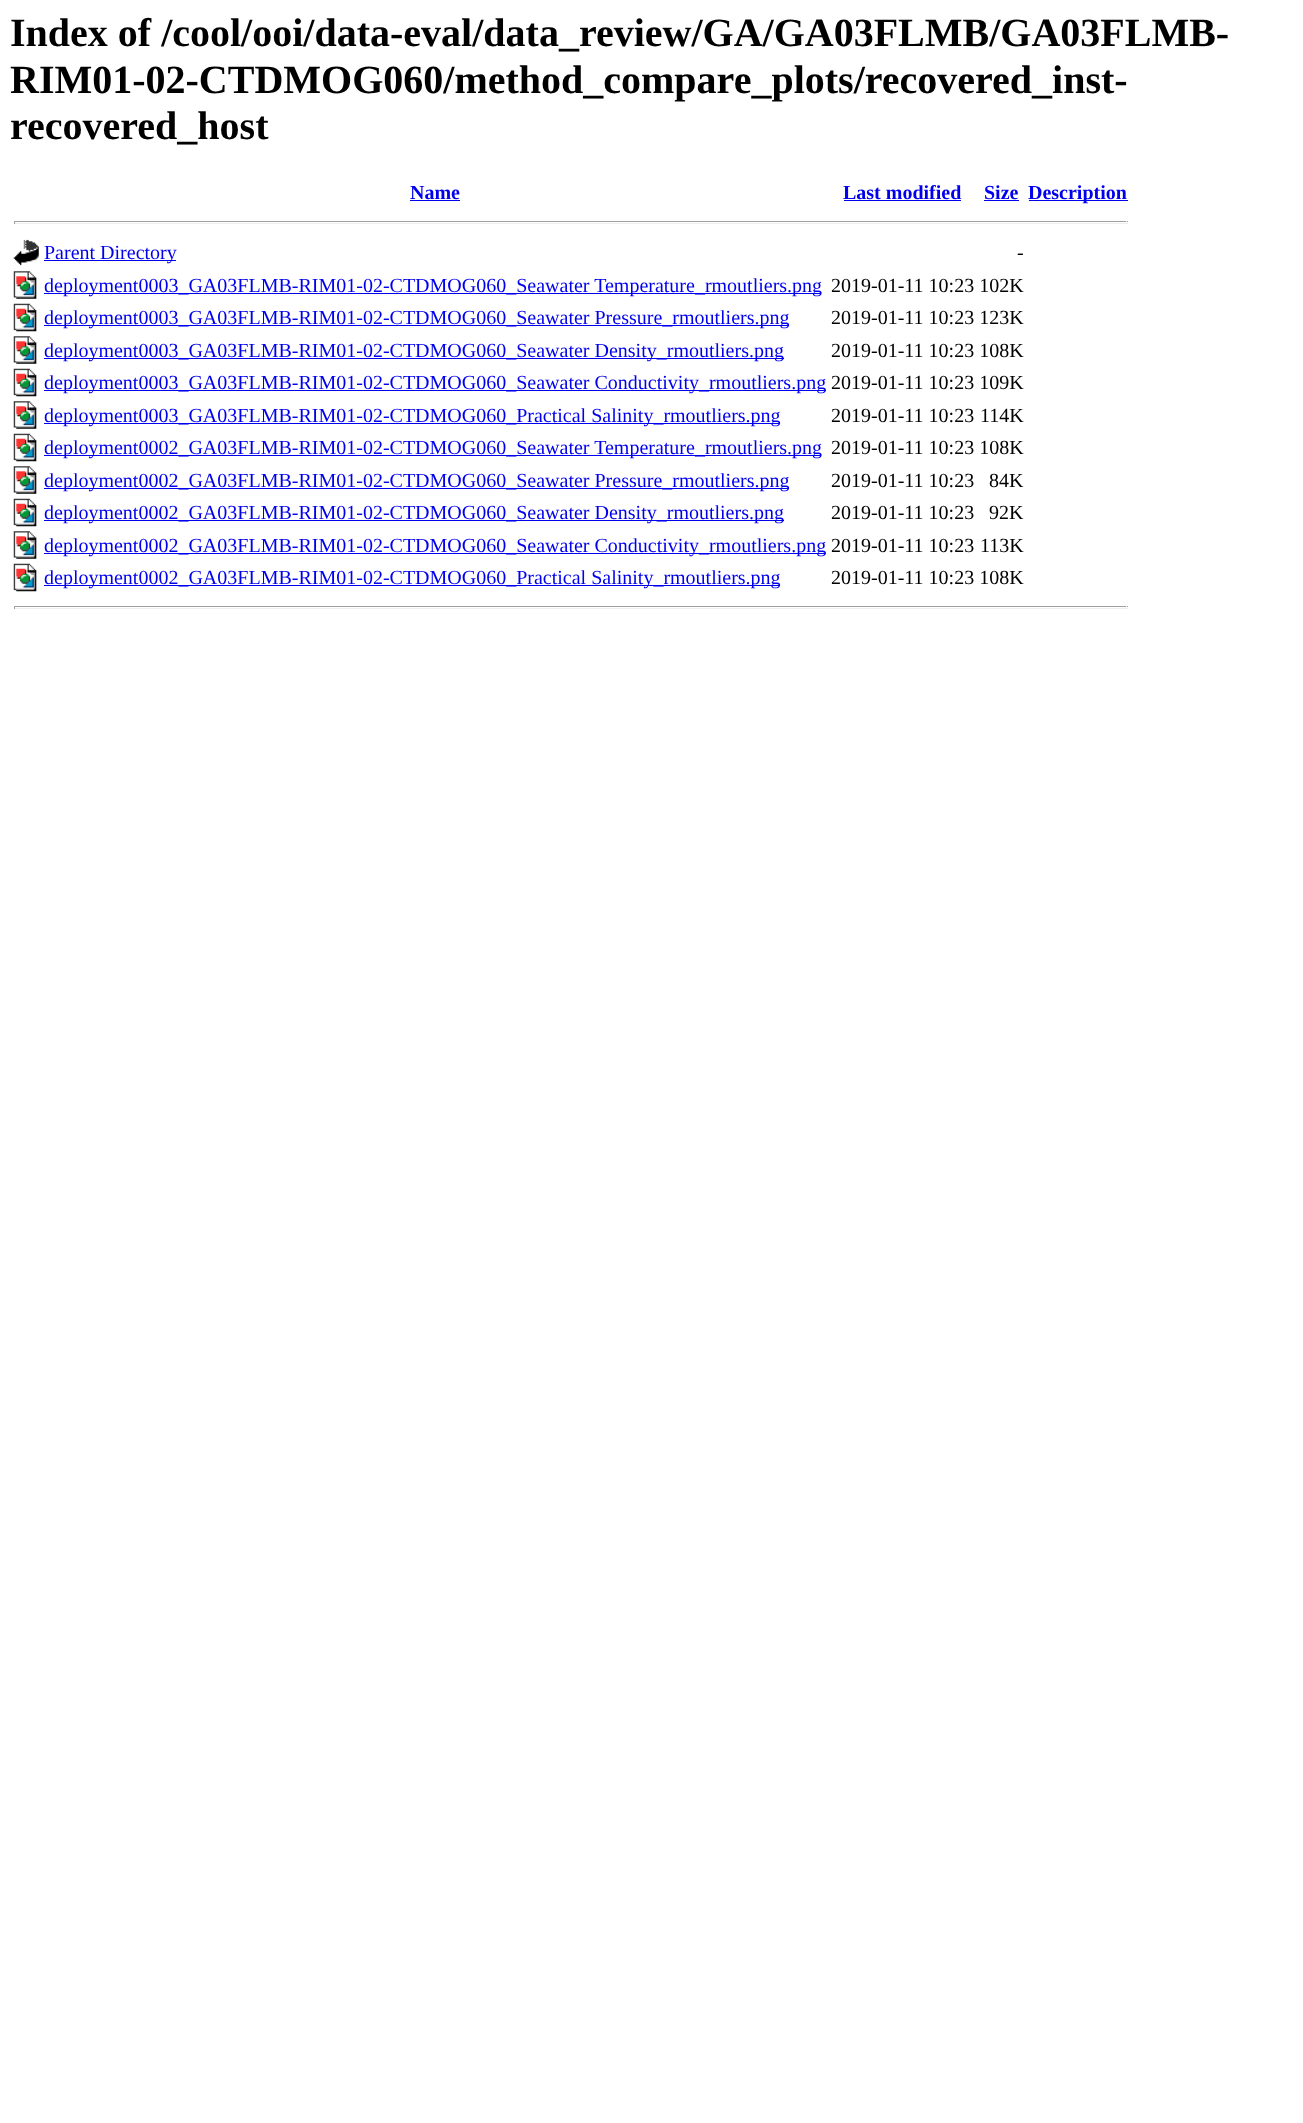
<?xml version="1.0" encoding="UTF-8"?>
<svg xmlns="http://www.w3.org/2000/svg" xmlns:xlink="http://www.w3.org/1999/xlink" width="1303" height="2123">
  <rect width="100%" height="100%" fill="#ffffff" />
  <rect x="410" y="200" width="50" height="1" fill="#0000ee" />
  <rect x="844" y="200" width="117" height="1" fill="#0000ee" />
  <rect x="984" y="200" width="35" height="1" fill="#0000ee" />
  <rect x="1029" y="200" width="99" height="1" fill="#0000ee" />
  <rect x="14" y="221" width="1114" height="1" fill="#9f9f9f" />
  <rect x="1126" y="221" width="1" height="3" fill="#eeeeee" />
  <rect x="14" y="223" width="1114" height="1" fill="#eeeeee" />
  <rect x="14" y="221" width="1" height="3" fill="#9f9f9f" />
  <image x="13" y="239" width="26" height="27" xlink:href="image1.png" />
  <rect x="44" y="260" width="132" height="1" fill="#0000ee" />
  <image x="13" y="271" width="24" height="28" xlink:href="image2.png" />
  <rect x="44" y="293" width="777" height="1" fill="#0000ee" />
  <image x="13" y="303" width="24" height="29" xlink:href="image3.png" />
  <rect x="44" y="325" width="745" height="1" fill="#0000ee" />
  <image x="13" y="336" width="24" height="28" xlink:href="image2.png" />
  <rect x="44" y="358" width="740" height="1" fill="#0000ee" />
  <image x="13" y="368" width="24" height="29" xlink:href="image3.png" />
  <rect x="44" y="390" width="782" height="1" fill="#0000ee" />
  <image x="13" y="401" width="24" height="28" xlink:href="image2.png" />
  <rect x="44" y="423" width="736" height="1" fill="#0000ee" />
  <image x="13" y="433" width="24" height="29" xlink:href="image3.png" />
  <rect x="44" y="455" width="777" height="1" fill="#0000ee" />
  <image x="13" y="466" width="24" height="28" xlink:href="image2.png" />
  <rect x="44" y="488" width="745" height="1" fill="#0000ee" />
  <image x="13" y="498" width="24" height="29" xlink:href="image3.png" />
  <rect x="44" y="520" width="740" height="1" fill="#0000ee" />
  <image x="13" y="531" width="24" height="28" xlink:href="image2.png" />
  <rect x="44" y="553" width="782" height="1" fill="#0000ee" />
  <image x="13" y="563" width="24" height="29" xlink:href="image3.png" />
  <rect x="44" y="585" width="736" height="1" fill="#0000ee" />
  <rect x="14" y="606" width="1114" height="1" fill="#9f9f9f" />
  <rect x="1126" y="606" width="1" height="3" fill="#eeeeee" />
  <rect x="14" y="608" width="1114" height="1" fill="#eeeeee" />
  <rect x="14" y="606" width="1" height="3" fill="#9f9f9f" />
  <text x="10" y="46" style="font-family: Liberation Serif; font-size: 40px; font-weight: bold; fill: #000000">Index of /cool/ooi/data-eval/data_review/GA/GA03FLMB/GA03FLMB-</text>
  <text x="10" y="93" style="font-family: Liberation Serif; font-size: 40px; font-weight: bold; fill: #000000">RIM01-02-CTDMOG060/method_compare_plots/recovered_inst-</text>
  <text x="10" y="139" style="font-family: Liberation Serif; font-size: 40px; font-weight: bold; fill: #000000">recovered_host</text>
  <text x="410" y="199" style="font-family: Liberation Serif; font-size: 20px; font-weight: bold; fill: #0000ee">Name</text>
  <text x="843" y="199" style="font-family: Liberation Serif; font-size: 20px; font-weight: bold; fill: #0000ee">Last modified</text>
  <text x="984" y="199" style="font-family: Liberation Serif; font-size: 20px; font-weight: bold; fill: #0000ee">Size</text>
  <text x="1028" y="199" style="font-family: Liberation Serif; font-size: 20px; font-weight: bold; fill: #0000ee">Description</text>
  <text x="44" y="259" style="font-family: Liberation Serif; font-size: 20px; fill: #0000ee">Parent Directory</text>
  <text x="1017" y="259" style="font-family: Liberation Serif; font-size: 20px; fill: #000000">-</text>
  <text x="44" y="292" style="font-family: Liberation Serif; font-size: 20px; fill: #0000ee">deployment0003_GA03FLMB-RIM01-02-CTDMOG060_Seawater Temperature_rmoutliers.png</text>
  <text x="831" y="292" style="font-family: Liberation Serif; font-size: 20px; fill: #000000">2019-01-11 10:23 102K</text>
  <text x="44" y="324" style="font-family: Liberation Serif; font-size: 20px; fill: #0000ee">deployment0003_GA03FLMB-RIM01-02-CTDMOG060_Seawater Pressure_rmoutliers.png</text>
  <text x="831" y="324" style="font-family: Liberation Serif; font-size: 20px; fill: #000000">2019-01-11 10:23 123K</text>
  <text x="44" y="357" style="font-family: Liberation Serif; font-size: 20px; fill: #0000ee">deployment0003_GA03FLMB-RIM01-02-CTDMOG060_Seawater Density_rmoutliers.png</text>
  <text x="831" y="357" style="font-family: Liberation Serif; font-size: 20px; fill: #000000">2019-01-11 10:23 108K</text>
  <text x="44" y="389" style="font-family: Liberation Serif; font-size: 20px; fill: #0000ee">deployment0003_GA03FLMB-RIM01-02-CTDMOG060_Seawater Conductivity_rmoutliers.png</text>
  <text x="831" y="389" style="font-family: Liberation Serif; font-size: 20px; fill: #000000">2019-01-11 10:23 109K</text>
  <text x="44" y="422" style="font-family: Liberation Serif; font-size: 20px; fill: #0000ee">deployment0003_GA03FLMB-RIM01-02-CTDMOG060_Practical Salinity_rmoutliers.png</text>
  <text x="831" y="422" style="font-family: Liberation Serif; font-size: 20px; fill: #000000">2019-01-11 10:23</text>
  <text x="980" y="422" style="font-family: Liberation Serif; font-size: 20px; fill: #000000">114K</text>
  <text x="44" y="454" style="font-family: Liberation Serif; font-size: 20px; fill: #0000ee">deployment0002_GA03FLMB-RIM01-02-CTDMOG060_Seawater Temperature_rmoutliers.png</text>
  <text x="831" y="454" style="font-family: Liberation Serif; font-size: 20px; fill: #000000">2019-01-11 10:23 108K</text>
  <text x="44" y="487" style="font-family: Liberation Serif; font-size: 20px; fill: #0000ee">deployment0002_GA03FLMB-RIM01-02-CTDMOG060_Seawater Pressure_rmoutliers.png</text>
  <text x="831" y="487" style="font-family: Liberation Serif; font-size: 20px; fill: #000000">2019-01-11 10:23</text>
  <text x="989" y="487" style="font-family: Liberation Serif; font-size: 20px; fill: #000000">84K</text>
  <text x="44" y="519" style="font-family: Liberation Serif; font-size: 20px; fill: #0000ee">deployment0002_GA03FLMB-RIM01-02-CTDMOG060_Seawater Density_rmoutliers.png</text>
  <text x="831" y="519" style="font-family: Liberation Serif; font-size: 20px; fill: #000000">2019-01-11 10:23</text>
  <text x="989" y="519" style="font-family: Liberation Serif; font-size: 20px; fill: #000000">92K</text>
  <text x="44" y="552" style="font-family: Liberation Serif; font-size: 20px; fill: #0000ee">deployment0002_GA03FLMB-RIM01-02-CTDMOG060_Seawater Conductivity_rmoutliers.png</text>
  <text x="831" y="552" style="font-family: Liberation Serif; font-size: 20px; fill: #000000">2019-01-11 10:23</text>
  <text x="980" y="552" style="font-family: Liberation Serif; font-size: 20px; fill: #000000">113K</text>
  <text x="44" y="584" style="font-family: Liberation Serif; font-size: 20px; fill: #0000ee">deployment0002_GA03FLMB-RIM01-02-CTDMOG060_Practical Salinity_rmoutliers.png</text>
  <text x="831" y="584" style="font-family: Liberation Serif; font-size: 20px; fill: #000000">2019-01-11 10:23 108K</text>
</svg>
